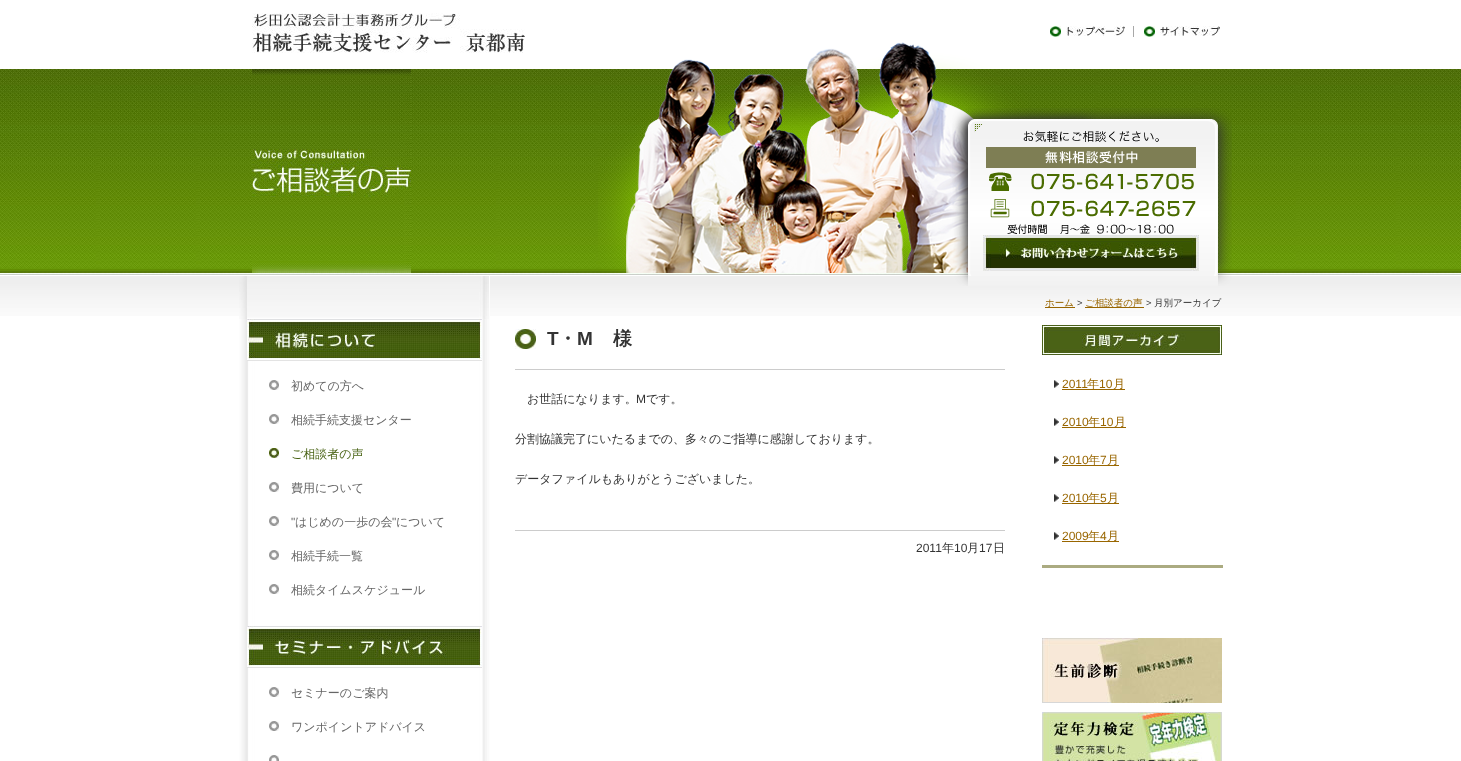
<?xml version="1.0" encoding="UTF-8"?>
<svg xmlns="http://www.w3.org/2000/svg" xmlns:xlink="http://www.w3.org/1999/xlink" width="1461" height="761">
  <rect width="100%" height="100%" fill="#ffffff" />
  <image x="0" y="69" width="1461" height="206" xlink:href="image1.png" />
  <image x="252" y="13" width="273" height="40" xlink:href="image2.png" />
  <image x="1050" y="26" width="11" height="11" xlink:href="image3.png" />
  <image x="1066" y="26" width="59" height="10" xlink:href="image4.png" />
  <rect x="1133" y="26" width="1" height="11" fill="#a8a8a8" />
  <image x="1144" y="26" width="11" height="11" xlink:href="image5.png" />
  <image x="1160" y="26" width="60" height="10" xlink:href="image6.png" />
  <image x="598" y="42" width="430" height="231" xlink:href="image7.png" />
  <image x="252" y="69" width="159" height="204" xlink:href="image8.png" />
  <image x="0" y="276" width="1461" height="40" xlink:href="image11.png" />
  <image x="952" y="108" width="280" height="178" xlink:href="image9.png" />
  <image x="983" y="235" width="216" height="36" xlink:href="image10.png" />
  <image x="239" y="276" width="251" height="485" xlink:href="image12.png" />
  <image x="239" y="276" width="250" height="43" xlink:href="image13.png" />
  <image x="247" y="319" width="235" height="42" xlink:href="image14.png" />
  <image x="269" y="380" width="10" height="10" xlink:href="image15.png" />
  <image x="269" y="414" width="10" height="10" xlink:href="image15.png" />
  <image x="269" y="448" width="10" height="10" xlink:href="image16.png" />
  <image x="269" y="482" width="10" height="10" xlink:href="image15.png" />
  <image x="269" y="516" width="10" height="10" xlink:href="image15.png" />
  <image x="269" y="550" width="10" height="10" xlink:href="image15.png" />
  <image x="269" y="584" width="10" height="10" xlink:href="image15.png" />
  <image x="247" y="626" width="235" height="42" xlink:href="image17.png" />
  <image x="269" y="687" width="10" height="10" xlink:href="image15.png" />
  <image x="269" y="721" width="10" height="10" xlink:href="image15.png" />
  <image x="269" y="755" width="10" height="6" xlink:href="image18.png" />
  <rect x="1045" y="307" width="30" height="1" fill="#996600" />
  <rect x="1085" y="307" width="59" height="1" fill="#996600" />
  <image x="515" y="329" width="21" height="20" xlink:href="image19.png" />
  <rect x="515" y="369" width="490" height="1" fill="#cccccc" />
  <rect x="515" y="530" width="490" height="1" fill="#cccccc" />
  <rect x="1042" y="565" width="181" height="3" fill="#abab81" />
  <image x="1042" y="325" width="180" height="30" xlink:href="image20.png" />
  <image x="1054" y="380" width="5" height="8" xlink:href="image21.png" />
  <rect x="1062" y="389" width="63" height="1" fill="#996600" />
  <image x="1054" y="418" width="5" height="8" xlink:href="image21.png" />
  <rect x="1062" y="427" width="64" height="1" fill="#996600" />
  <image x="1054" y="456" width="5" height="8" xlink:href="image21.png" />
  <rect x="1062" y="465" width="57" height="1" fill="#996600" />
  <image x="1054" y="494" width="5" height="8" xlink:href="image21.png" />
  <rect x="1062" y="503" width="57" height="1" fill="#996600" />
  <image x="1054" y="532" width="5" height="8" xlink:href="image21.png" />
  <rect x="1062" y="541" width="57" height="1" fill="#996600" />
  <image x="1042" y="638" width="180" height="65" xlink:href="image22.png" />
  <image x="1042" y="712" width="180" height="49" xlink:href="image23.png" />
  <text x="291" y="390" style="font-family: WenQuanYi Zen Hei; font-size: 12px; font-weight: 500; fill: #666666">初めての方へ</text>
  <text x="291" y="424" style="font-family: WenQuanYi Zen Hei; font-size: 12px; font-weight: 500; fill: #666666">相続手続支援センター</text>
  <text x="291" y="458" style="font-family: WenQuanYi Zen Hei; font-size: 12px; font-weight: 500; fill: #496314">ご相談者の声</text>
  <text x="291" y="492" style="font-family: WenQuanYi Zen Hei; font-size: 12px; font-weight: 500; fill: #666666">費用について</text>
  <text x="291" y="526" style="font-family: Liberation Sans; font-size: 12px; fill: #666666">"</text>
  <text x="295" y="526" style="font-family: WenQuanYi Zen Hei; font-size: 12px; font-weight: 500; fill: #666666">はじめの一歩の会</text>
  <text x="392" y="526" style="font-family: Liberation Sans; font-size: 12px; fill: #666666">"</text>
  <text x="396" y="526" style="font-family: WenQuanYi Zen Hei; font-size: 12px; font-weight: 500; fill: #666666">について</text>
  <text x="291" y="560" style="font-family: WenQuanYi Zen Hei; font-size: 12px; font-weight: 500; fill: #666666">相続手続一覧</text>
  <text x="291" y="594" style="font-family: WenQuanYi Zen Hei; font-size: 12px; font-weight: 500; fill: #666666">相続タイムスケジュール</text>
  <text x="291" y="697" style="font-family: WenQuanYi Zen Hei; font-size: 12px; font-weight: 500; fill: #666666">セミナーのご案内</text>
  <text x="291" y="731" style="font-family: WenQuanYi Zen Hei; font-size: 12px; font-weight: 500; fill: #666666">ワンポイントアドバイス</text>
  <text x="1045" y="306" style="font-family: WenQuanYi Zen Hei; font-size: 9.5px; font-weight: 500; fill: #996600">ホーム</text>
  <text x="1077" y="306" style="font-family: Liberation Sans; font-size: 9.5px; fill: #333333">&gt;</text>
  <text x="1085" y="306" style="font-family: WenQuanYi Zen Hei; font-size: 9.5px; font-weight: 500; fill: #996600">ご相談者の声</text>
  <text x="1146" y="306" style="font-family: Liberation Sans; font-size: 9.5px; fill: #333333">&gt;</text>
  <text x="1154" y="306" style="font-family: WenQuanYi Zen Hei; font-size: 9.5px; font-weight: 500; fill: #333333">月別アーカイブ</text>
  <text x="547" y="345" style="font-family: Liberation Sans; font-size: 19px; font-weight: bold; fill: #333333">T</text>
  <text x="558" y="345" style="font-family: WenQuanYi Zen Hei; font-size: 19px; font-weight: bold; fill: #333333">・</text>
  <text x="577" y="345" style="font-family: Liberation Sans; font-size: 19px; font-weight: bold; fill: #333333">M</text>
  <text x="613" y="345" style="font-family: WenQuanYi Zen Hei; font-size: 19px; font-weight: bold; fill: #333333">様</text>
  <text x="527" y="403" style="font-family: WenQuanYi Zen Hei; font-size: 12px; font-weight: 500; fill: #333333">お世話になります。</text>
  <text x="636" y="403" style="font-family: Liberation Sans; font-size: 12px; fill: #333333">M</text>
  <text x="646" y="403" style="font-family: WenQuanYi Zen Hei; font-size: 12px; font-weight: 500; fill: #333333">です。</text>
  <text x="515" y="443" style="font-family: WenQuanYi Zen Hei; font-size: 12px; font-weight: 500; fill: #333333">分割協議完了にいたるまでの、多々のご指導に感謝しております。</text>
  <text x="515" y="483" style="font-family: WenQuanYi Zen Hei; font-size: 12px; font-weight: 500; fill: #333333">データファイルもありがとうございました。</text>
  <text x="916" y="552" style="font-family: Liberation Sans; font-size: 12px; fill: #333333">2011</text>
  <text x="942" y="552" style="font-family: WenQuanYi Zen Hei; font-size: 12px; font-weight: 500; fill: #333333">年</text>
  <text x="954" y="552" style="font-family: Liberation Sans; font-size: 12px; fill: #333333">10</text>
  <text x="967" y="552" style="font-family: WenQuanYi Zen Hei; font-size: 12px; font-weight: 500; fill: #333333">月</text>
  <text x="979" y="552" style="font-family: Liberation Sans; font-size: 12px; fill: #333333">17</text>
  <text x="993" y="552" style="font-family: WenQuanYi Zen Hei; font-size: 12px; font-weight: 500; fill: #333333">日</text>
  <text x="1062" y="388" style="font-family: Liberation Sans; font-size: 12px; fill: #996600">2011</text>
  <text x="1087" y="388" style="font-family: WenQuanYi Zen Hei; font-size: 12px; font-weight: 500; fill: #996600">年</text>
  <text x="1099" y="388" style="font-family: Liberation Sans; font-size: 12px; fill: #996600">10</text>
  <text x="1113" y="388" style="font-family: WenQuanYi Zen Hei; font-size: 12px; font-weight: 500; fill: #996600">月</text>
  <text x="1062" y="426" style="font-family: Liberation Sans; font-size: 12px; fill: #996600">2010</text>
  <text x="1088" y="426" style="font-family: WenQuanYi Zen Hei; font-size: 12px; font-weight: 500; fill: #996600">年</text>
  <text x="1100" y="426" style="font-family: Liberation Sans; font-size: 12px; fill: #996600">10</text>
  <text x="1114" y="426" style="font-family: WenQuanYi Zen Hei; font-size: 12px; font-weight: 500; fill: #996600">月</text>
  <text x="1062" y="464" style="font-family: Liberation Sans; font-size: 12px; fill: #996600">2010</text>
  <text x="1088" y="464" style="font-family: WenQuanYi Zen Hei; font-size: 12px; font-weight: 500; fill: #996600">年</text>
  <text x="1100" y="464" style="font-family: Liberation Sans; font-size: 12px; fill: #996600">7</text>
  <text x="1107" y="464" style="font-family: WenQuanYi Zen Hei; font-size: 12px; font-weight: 500; fill: #996600">月</text>
  <text x="1062" y="502" style="font-family: Liberation Sans; font-size: 12px; fill: #996600">2010</text>
  <text x="1088" y="502" style="font-family: WenQuanYi Zen Hei; font-size: 12px; font-weight: 500; fill: #996600">年</text>
  <text x="1100" y="502" style="font-family: Liberation Sans; font-size: 12px; fill: #996600">5</text>
  <text x="1107" y="502" style="font-family: WenQuanYi Zen Hei; font-size: 12px; font-weight: 500; fill: #996600">月</text>
  <text x="1062" y="540" style="font-family: Liberation Sans; font-size: 12px; fill: #996600">2009</text>
  <text x="1088" y="540" style="font-family: WenQuanYi Zen Hei; font-size: 12px; font-weight: 500; fill: #996600">年</text>
  <text x="1100" y="540" style="font-family: Liberation Sans; font-size: 12px; fill: #996600">4</text>
  <text x="1107" y="540" style="font-family: WenQuanYi Zen Hei; font-size: 12px; font-weight: 500; fill: #996600">月</text>
</svg>
